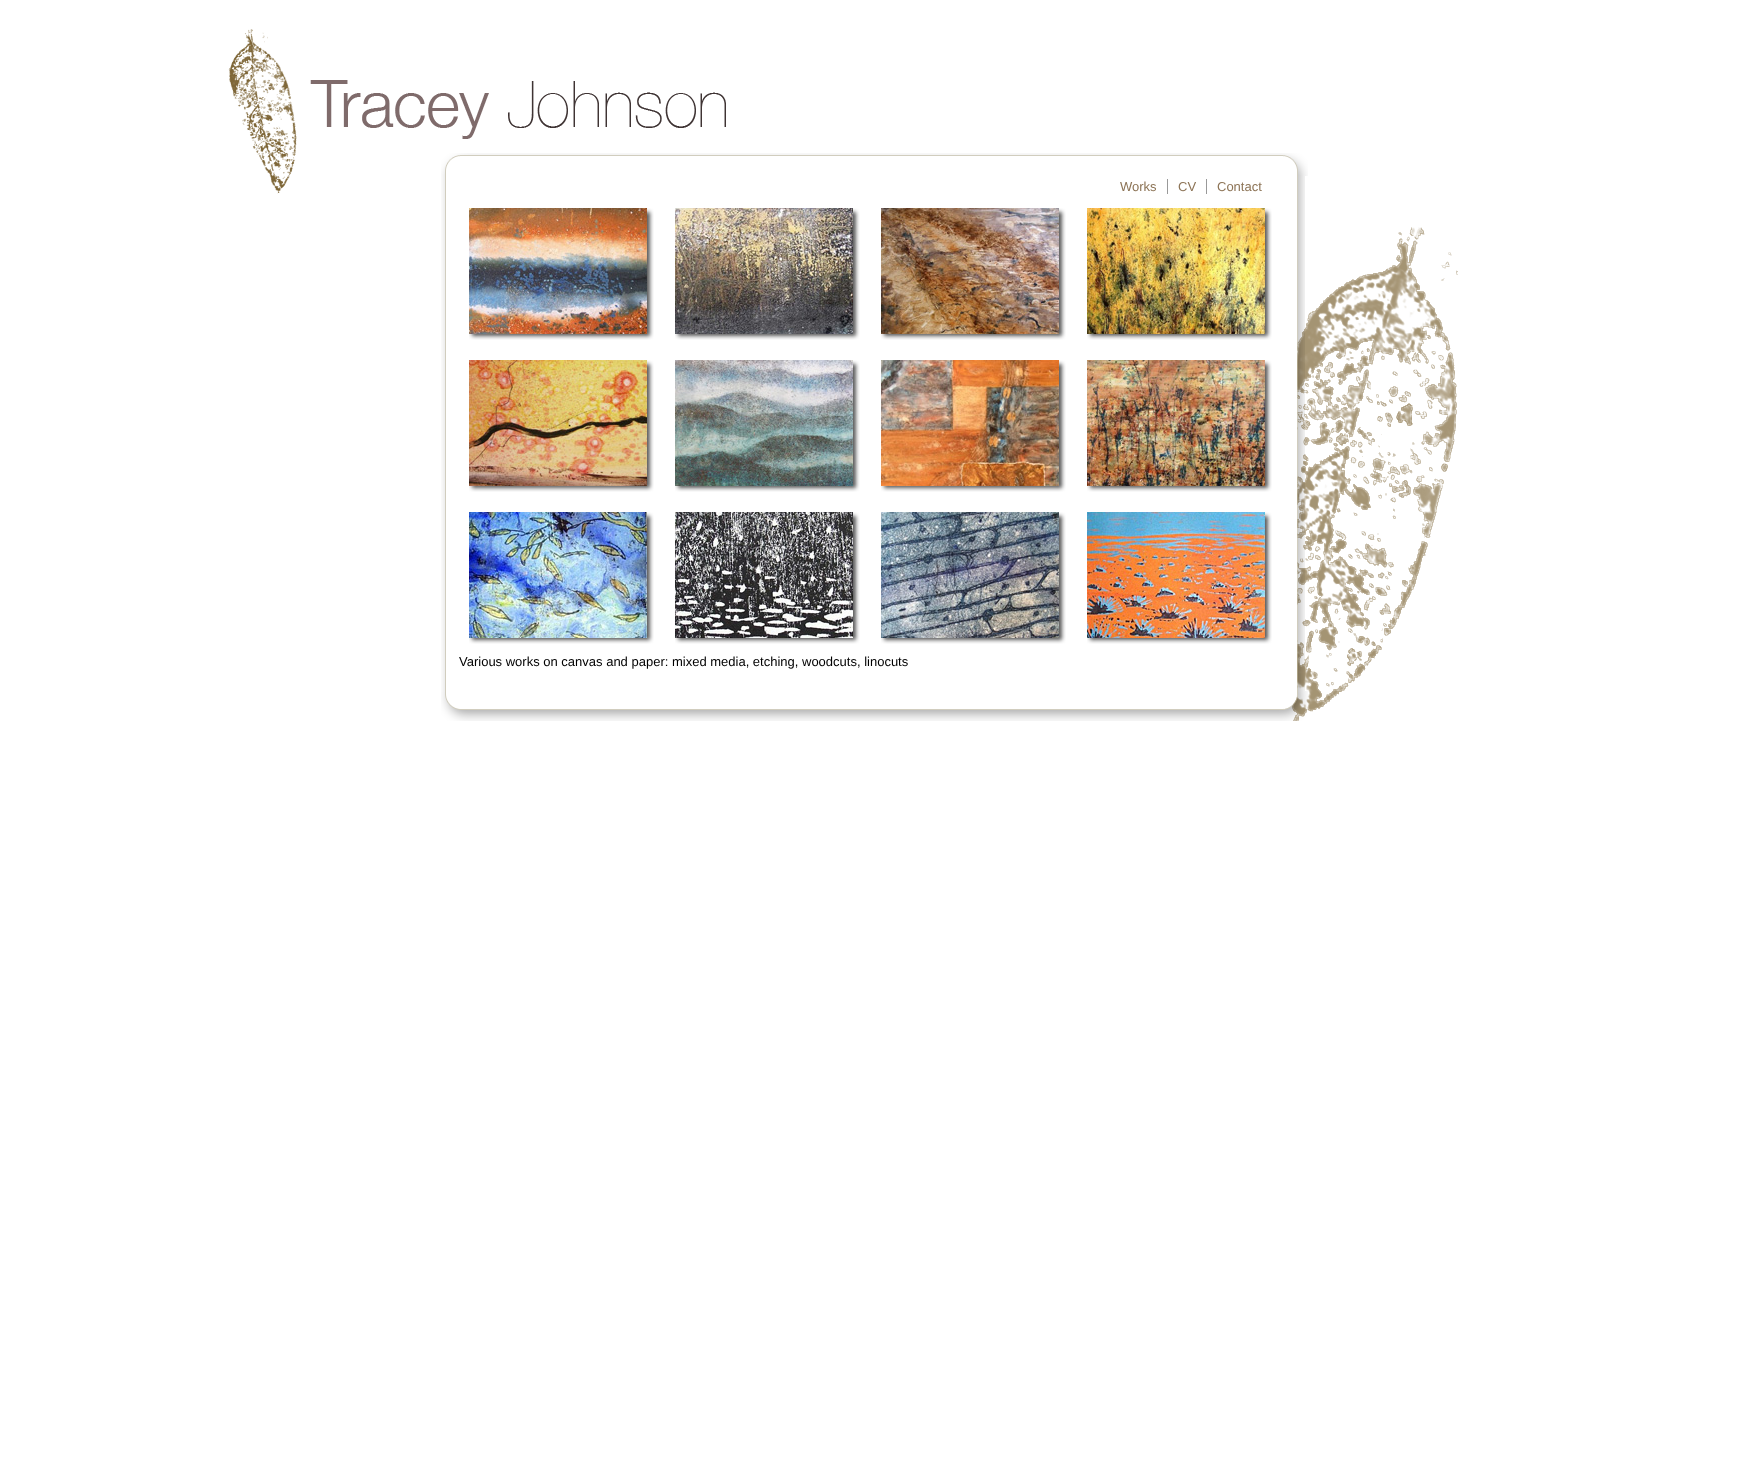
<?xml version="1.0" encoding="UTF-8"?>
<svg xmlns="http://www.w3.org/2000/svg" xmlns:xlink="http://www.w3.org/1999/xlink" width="1748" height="1468">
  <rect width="100%" height="100%" fill="#ffffff" />
  <image x="228" y="29" width="69" height="165" xlink:href="image1.png" />
  <image x="310" y="80" width="416" height="59" xlink:href="image2.png" />
  <image x="441" y="153" width="867" height="23" xlink:href="image3.png" />
  <image x="1292" y="227" width="166" height="494" xlink:href="image18.png" />
  <image x="441" y="176" width="864" height="515" xlink:href="image4.png" />
  <rect x="1167" y="179" width="1" height="15" fill="#999999" />
  <rect x="1206" y="179" width="1" height="15" fill="#999999" />
  <image x="469" y="208" width="185" height="132" xlink:href="image5.png" />
  <image x="469" y="208" width="178" height="126" xlink:href="image6.png" />
  <image x="675" y="208" width="185" height="132" xlink:href="image5.png" />
  <image x="675" y="208" width="178" height="126" xlink:href="image7.png" />
  <image x="881" y="208" width="185" height="132" xlink:href="image5.png" />
  <image x="881" y="208" width="178" height="126" xlink:href="image8.png" />
  <image x="1087" y="208" width="185" height="132" xlink:href="image5.png" />
  <image x="1087" y="208" width="178" height="126" xlink:href="image9.png" />
  <image x="469" y="360" width="185" height="132" xlink:href="image5.png" />
  <image x="469" y="360" width="178" height="126" xlink:href="image10.png" />
  <image x="675" y="360" width="185" height="132" xlink:href="image5.png" />
  <image x="675" y="360" width="178" height="126" xlink:href="image11.png" />
  <image x="881" y="360" width="185" height="132" xlink:href="image5.png" />
  <image x="881" y="360" width="178" height="126" xlink:href="image12.png" />
  <image x="1087" y="360" width="185" height="132" xlink:href="image5.png" />
  <image x="1087" y="360" width="178" height="126" xlink:href="image13.png" />
  <image x="469" y="512" width="185" height="132" xlink:href="image5.png" />
  <image x="469" y="512" width="178" height="126" xlink:href="image14.png" />
  <image x="675" y="512" width="185" height="132" xlink:href="image5.png" />
  <image x="675" y="512" width="178" height="126" xlink:href="image15.png" />
  <image x="881" y="512" width="185" height="132" xlink:href="image5.png" />
  <image x="881" y="512" width="178" height="126" xlink:href="image16.png" />
  <image x="1087" y="512" width="185" height="132" xlink:href="image5.png" />
  <image x="1087" y="512" width="178" height="126" xlink:href="image17.png" />
  <image x="441" y="691" width="867" height="30" xlink:href="image19.png" />
  <text x="1120" y="191" style="font-family: Liberation Sans; font-size: 13px; fill: #8c7355">Works</text>
  <text x="1178" y="191" style="font-family: Liberation Sans; font-size: 13px; fill: #8c7355">CV</text>
  <text x="1217" y="191" style="font-family: Liberation Sans; font-size: 13px; fill: #8c7355">Contact</text>
  <text x="459" y="666" style="font-family: Liberation Sans; font-size: 13px; fill: #000000">Various works on canvas and paper: mixed media, etching, woodcuts, linocuts</text>
</svg>
